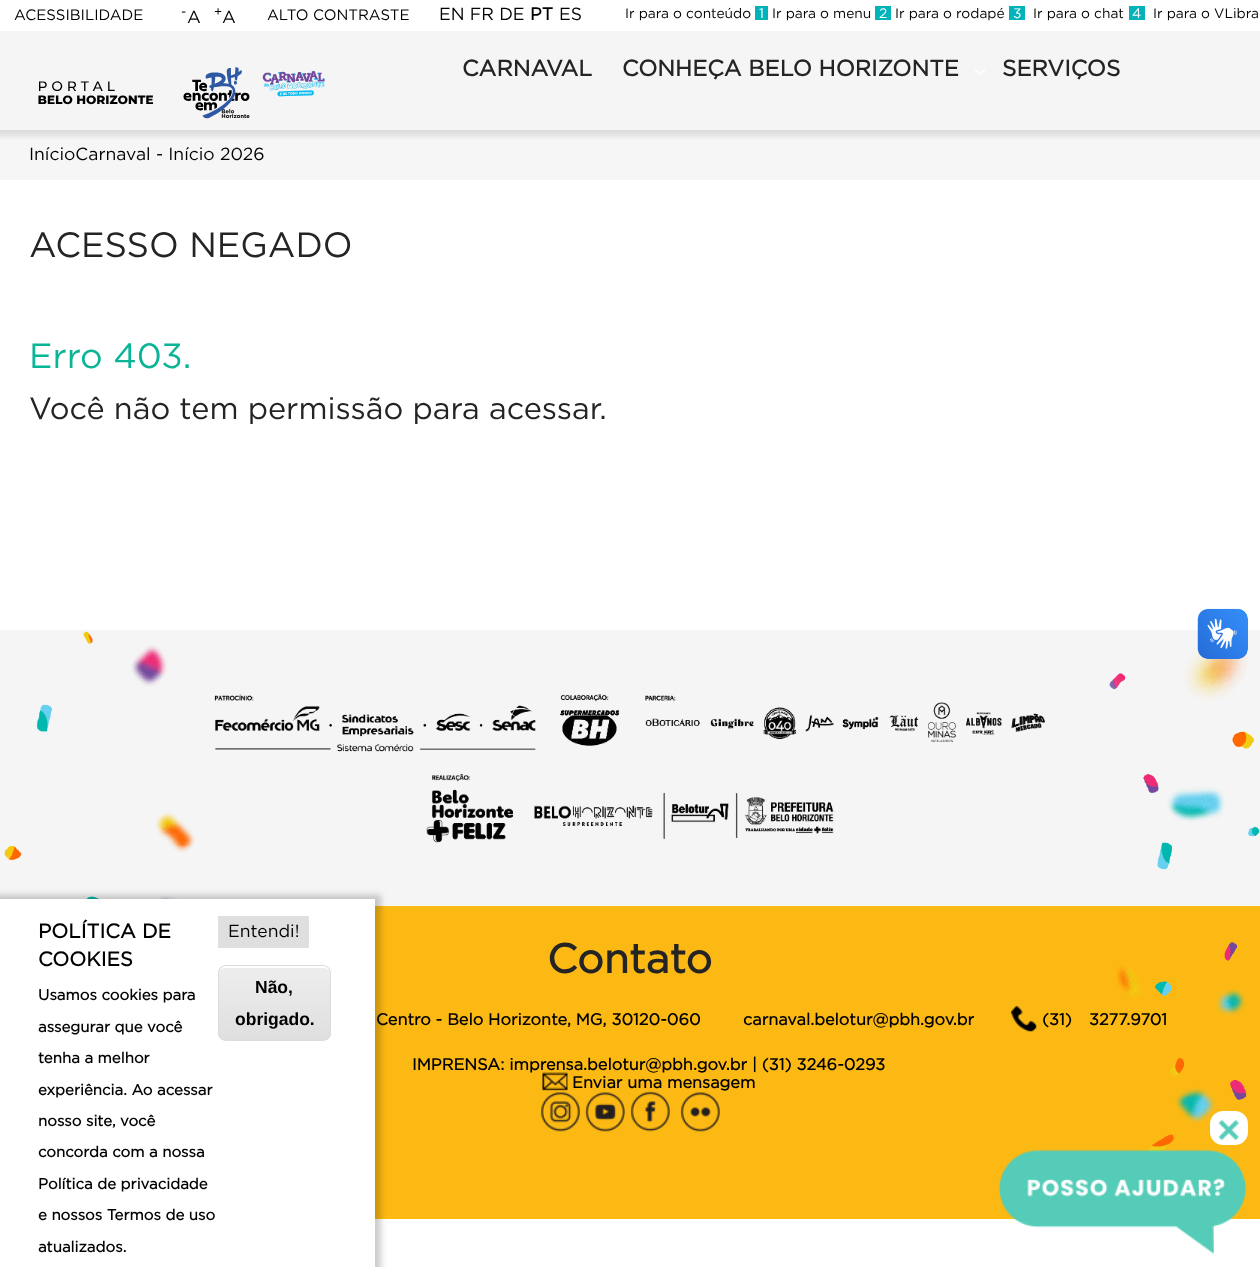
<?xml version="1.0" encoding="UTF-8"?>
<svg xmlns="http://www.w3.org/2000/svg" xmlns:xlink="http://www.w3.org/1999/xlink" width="1260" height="1267">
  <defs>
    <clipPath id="clip1"><rect x="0" y="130" width="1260" height="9" /></clipPath>
    <clipPath id="clip2"><rect x="218" y="965" width="113" height="76" rx="8" /></clipPath>
    <linearGradient id="g1" gradientUnits="userSpaceOnUse" x1="274" y1="966" x2="274" y2="1040"><stop offset="0.05" stop-color="#ededed" /><stop offset="1" stop-color="#dfdfdf" /></linearGradient>
  </defs>
  <rect width="100%" height="100%" fill="#ffffff" />
  <rect y="130" width="1260" height="50" fill="#f6f6f6" />
  <g clip-path="url(#clip1)">
    <rect x="-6" y="-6" width="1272" height="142" fill="#000000" fill-opacity="0.1" filter="blur(3px)" />
  </g>
  <rect x="755" y="6" width="13" height="14" fill="#03b3ba" />
  <rect x="875" y="6" width="16" height="14" fill="#03b3ba" />
  <rect x="1009" y="6" width="16" height="14" fill="#03b3ba" />
  <rect x="1129" y="6" width="16" height="14" fill="#03b3ba" />
  <rect y="630" width="1260" height="276" fill="#f5f5f5" />
  <image x="4" y="631" width="1256" height="268" xlink:href="image6.png" />
  <image x="1197" y="608" width="51" height="51" xlink:href="image1.png" />
  <image x="1198" y="609" width="50" height="50" xlink:href="image2.png" />
  <rect y="31" width="1260" height="99" fill="#f5f5f5" />
  <image x="38" y="67" width="212" height="52" xlink:href="image3.png" />
  <image x="262" y="70" width="63" height="27" xlink:href="image4.png" />
  <image x="975" y="69" width="10" height="6" xlink:href="image5.png" />
  <image x="214" y="694" width="831" height="149" xlink:href="image7.png" />
  <rect x="375" y="906" width="885" height="313" fill="#ffc40d" />
  <image x="375" y="906" width="885" height="313" xlink:href="image8.png" />
  <image x="1011" y="1006" width="26" height="26" xlink:href="image9.png" />
  <image x="542" y="1072" width="26" height="19" xlink:href="image10.png" />
  <image x="541" y="1092" width="39" height="40" xlink:href="image11.png" />
  <image x="585" y="1092" width="40" height="40" xlink:href="image12.png" />
  <image x="630" y="1091" width="40" height="41" xlink:href="image13.png" />
  <image x="680" y="1092" width="40" height="40" xlink:href="image14.png" />
  <rect x="1210" y="1111" width="38" height="34" rx="13" fill="#ffffff" />
  <image x="1218" y="1119" width="21" height="22" xlink:href="image15.png" />
  <image x="998" y="1149" width="249" height="105" xlink:href="image16.png" />
  <rect x="-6" y="895" width="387" height="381" fill="#000000" fill-opacity="0.2" filter="blur(3px)" />
  <rect y="899" width="375" height="368" fill="#ffffff" />
  <rect x="218" y="916" width="91" height="32" fill="#dfdfdf" />
  <g clip-path="url(#clip2)">
    <rect x="218" y="966" width="113" height="74" fill="url(#g1)" />
  </g>
  <path d="M 225 968 h 99 c 3 0 6 2 6 6 c 0 -12 -13 -8 -22 -8 h -66 c -10 0 -23 -4 -23 8 c 0 -4 3 -6 6 -6 z" fill="#ffffff" />
  <rect x="218.5" y="965.5" width="112" height="75" rx="7.5" fill="none" stroke="#dcdcdc" />
  <text x="14" y="20" style="font-family: Gotham; font-size: 15px; fill: #000000">ACESSIBILIDADE</text>
  <text x="181" y="16" style="font-family: Gotham; font-size: 13px; fill: #000000">-</text>
  <text x="187" y="23" style="font-family: Gotham; font-size: 17.5px; fill: #000000">A</text>
  <text x="214" y="16" style="font-family: Gotham; font-size: 13px; fill: #000000">+</text>
  <text x="222" y="23" style="font-family: Gotham; font-size: 17.5px; fill: #000000">A</text>
  <text x="267" y="20" style="font-family: Gotham; font-size: 15px; fill: #000000">ALTO CONTRASTE</text>
  <text x="439" y="20" style="font-family: Gotham; font-size: 17.5px; fill: #000000">EN FR DE</text>
  <text x="530" y="20" style="font-family: Gotham; font-size: 17.5px; font-weight: bold; fill: #000000">PT</text>
  <text x="559" y="20" style="font-family: Gotham; font-size: 17.5px; fill: #000000">ES</text>
  <text x="625" y="18" style="font-family: Gotham; font-size: 13.75px; fill: #000000">Ir para o conteúdo</text>
  <text x="759" y="18" style="font-family: Gotham; font-size: 13.75px; fill: #ffffff">1</text>
  <text x="772" y="18" style="font-family: Gotham; font-size: 13.75px; fill: #000000">Ir para o menu</text>
  <text x="879" y="18" style="font-family: Gotham; font-size: 13.75px; fill: #ffffff">2</text>
  <text x="895" y="18" style="font-family: Gotham; font-size: 13.75px; fill: #000000">Ir para o rodapé</text>
  <text x="1013" y="18" style="font-family: Gotham; font-size: 13.75px; fill: #ffffff">3</text>
  <text x="1033" y="18" style="font-family: Gotham; font-size: 13.75px; fill: #000000">Ir para o chat</text>
  <text x="1132" y="18" style="font-family: Gotham; font-size: 13.75px; fill: #ffffff">4</text>
  <text x="1153" y="18" style="font-family: Gotham; font-size: 13.75px; fill: #000000">Ir para o VLibra</text>
  <text x="462" y="76" style="font-family: Gotham; font-size: 22.5px; font-weight: bold; fill: #242424">CARNAVAL</text>
  <text x="622" y="76" style="font-family: Gotham; font-size: 22.5px; font-weight: bold; fill: #242424">CONHEÇA BELO HORIZONTE</text>
  <text x="1002" y="76" style="font-family: Gotham; font-size: 22.5px; font-weight: bold; fill: #242424">SERVIÇOS</text>
  <text x="29" y="160" style="font-family: Gotham; font-size: 17.5px; fill: #000000">InícioCarnaval - Início 2026</text>
  <text x="29" y="257" style="font-family: Gotham; font-size: 35px; fill: #242424">ACESSO NEGADO</text>
  <text x="29" y="368" style="font-family: Gotham; font-size: 35px; fill: #0ab496">Erro 403.</text>
  <text x="29" y="419" style="font-family: Gotham; font-size: 30.6px; fill: #242424">Você não tem permissão para acessar.</text>
  <text x="547" y="973" style="font-family: Gotham; font-size: 41.25px; font-weight: bold; fill: #242424">Contato</text>
  <text x="376" y="1025" style="font-family: Gotham; font-size: 16.25px; font-weight: bold; fill: #000000">Centro - Belo Horizonte, MG, 30120-060</text>
  <text x="743" y="1025" style="font-family: Gotham; font-size: 16.25px; font-weight: bold; fill: #000000">carnaval.belotur@pbh.gov.br</text>
  <text x="1042" y="1025" style="font-family: Gotham; font-size: 16.25px; font-weight: bold; fill: #000000">(31)</text>
  <text x="1089" y="1025" style="font-family: Gotham; font-size: 16.25px; font-weight: bold; fill: #000000">3277.9701</text>
  <text x="572" y="1088" style="font-family: Gotham; font-size: 16.25px; font-weight: bold; fill: #000000">Enviar uma mensagem</text>
  <text x="412" y="1070" style="font-family: Gotham; font-size: 16.25px; font-weight: bold; fill: #000000">IMPRENSA: imprensa.belotur@pbh.gov.br | (31) 3246-0293</text>
  <text x="38" y="938" style="font-family: Gotham; font-size: 20px; font-weight: bold; fill: #000000">POLÍTICA DE</text>
  <text x="38" y="966" style="font-family: Gotham; font-size: 20px; font-weight: bold; fill: #000000">COOKIES</text>
  <text x="38" y="1000" style="font-family: Gotham; font-size: 15px; font-weight: bold; fill: #000000">Usamos cookies para</text>
  <text x="38" y="1032" style="font-family: Gotham; font-size: 15px; font-weight: bold; fill: #000000">assegurar que você</text>
  <text x="38" y="1063" style="font-family: Gotham; font-size: 15px; font-weight: bold; fill: #000000">tenha a melhor</text>
  <text x="38" y="1095" style="font-family: Gotham; font-size: 15px; font-weight: bold; fill: #000000">experiência. Ao acessar</text>
  <text x="38" y="1126" style="font-family: Gotham; font-size: 15px; font-weight: bold; fill: #000000">nosso site, você</text>
  <text x="38" y="1157" style="font-family: Gotham; font-size: 15px; font-weight: bold; fill: #000000">concorda com a nossa</text>
  <text x="38" y="1189" style="font-family: Gotham; font-size: 15px; font-weight: bold; fill: #000000">Política de privacidade</text>
  <text x="38" y="1220" style="font-family: Gotham; font-size: 15px; font-weight: bold; fill: #000000">e nossos Termos de uso</text>
  <text x="38" y="1252" style="font-family: Gotham; font-size: 15px; font-weight: bold; fill: #000000">atualizados.</text>
  <text x="228" y="937" style="font-family: Gotham; font-size: 17.5px; fill: #000000">Entendi!</text>
  <text x="255" y="993" style="font-family: Liberation Sans; font-size: 17.5px; font-weight: bold; fill: #000000">Não,</text>
  <text x="235" y="1025" style="font-family: Liberation Sans; font-size: 17.5px; font-weight: bold; fill: #000000">obrigado.</text>
</svg>
